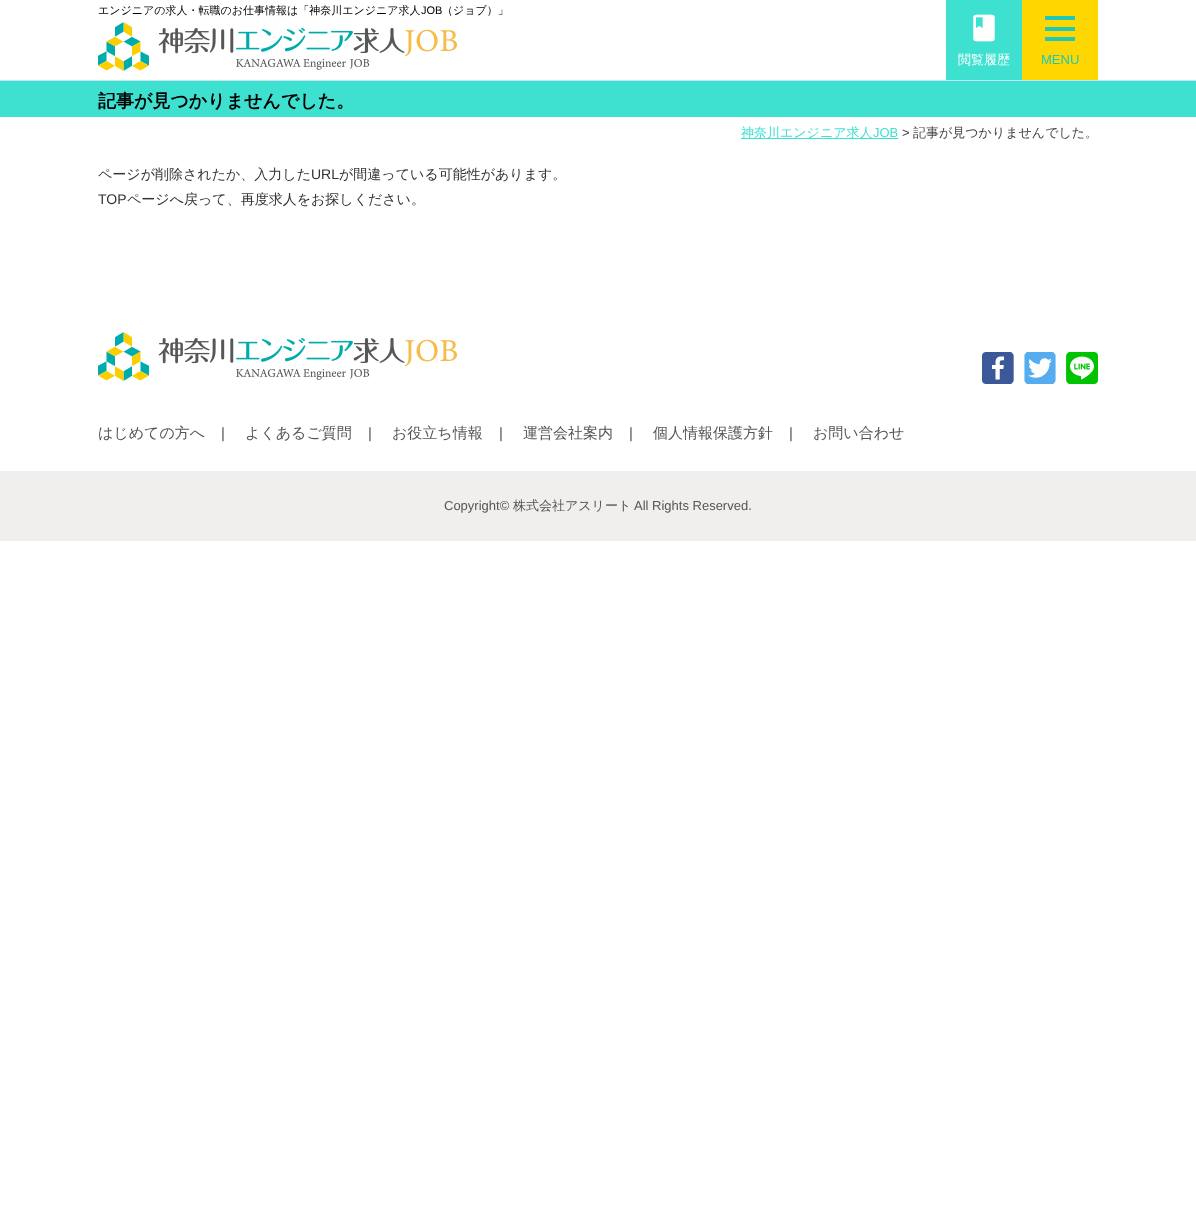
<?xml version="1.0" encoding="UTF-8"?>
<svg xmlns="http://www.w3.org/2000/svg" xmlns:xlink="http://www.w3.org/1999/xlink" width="1196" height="1225">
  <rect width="100%" height="100%" fill="#ffffff" />
  <rect y="80" width="1196" height="1" fill="#c1e7f4" />
  <image x="98" y="22" width="359" height="49" xlink:href="image1.png" />
  <rect x="946" width="76" height="80" fill="#3ee1d0" />
  <image x="973" y="14" width="22" height="28" xlink:href="image2.png" />
  <rect x="1022" width="76" height="80" fill="#fed700" />
  <rect x="1045" y="16" width="30" height="4" fill="#20c8b7" />
  <rect x="1045" y="27" width="30" height="4" fill="#20c8b7" />
  <rect x="1045" y="37" width="30" height="4" fill="#20c8b7" />
  <rect y="81" width="1196" height="36" fill="#3ee1d0" />
  <rect x="741" y="138" width="157" height="1" fill="#3ee1d0" />
  <image x="98" y="332" width="359" height="49" xlink:href="image1.png" />
  <image x="982" y="352" width="32" height="32" xlink:href="image3.png" />
  <image x="1024" y="352" width="32" height="32" xlink:href="image4.png" />
  <image x="1066" y="352" width="32" height="32" xlink:href="image5.png" />
  <rect y="471" width="1196" height="70" fill="#f0efee" />
  <text x="98" y="14" style="font-family: WenQuanYi Zen Hei; font-size: 11px; font-weight: 500; fill: #020000">エンジニアの求人・転職のお仕事情報は「神奈川エンジニア求人</text>
  <text x="421" y="14" style="font-family: Liberation Sans; font-size: 11px; fill: #020000">JOB</text>
  <text x="442" y="14" style="font-family: WenQuanYi Zen Hei; font-size: 11px; font-weight: 500; fill: #020000">（ジョブ）」</text>
  <text x="958" y="64" style="font-family: WenQuanYi Zen Hei; font-size: 13px; font-weight: 500; fill: #ffffff">閲覧履歴</text>
  <text x="1041" y="64" style="font-family: Liberation Sans; font-size: 13px; fill: #20c8b7">MENU</text>
  <text x="98" y="107" style="font-family: WenQuanYi Zen Hei; font-size: 18px; font-weight: bold; fill: #020000">記事が見つかりませんでした。</text>
  <text x="741" y="137" style="font-family: WenQuanYi Zen Hei; font-size: 13px; font-weight: 500; fill: #3ee1d0">神奈川エンジニア求人</text>
  <text x="873" y="137" style="font-family: Liberation Sans; font-size: 13px; fill: #3ee1d0">JOB</text>
  <text x="902" y="137" style="font-family: Liberation Sans; font-size: 13px; fill: #444444">&gt;</text>
  <text x="913" y="137" style="font-family: WenQuanYi Zen Hei; font-size: 13px; font-weight: 500; fill: #444444">記事が見つかりませんでした。</text>
  <text x="98" y="179" style="font-family: WenQuanYi Zen Hei; font-size: 14px; font-weight: 500; fill: #333333">ページが削除されたか、入力した</text>
  <text x="311" y="179" style="font-family: Liberation Sans; font-size: 14px; fill: #333333">URL</text>
  <text x="339" y="179" style="font-family: WenQuanYi Zen Hei; font-size: 14px; font-weight: 500; fill: #333333">が間違っている可能性があります。</text>
  <text x="98" y="204" style="font-family: Liberation Sans; font-size: 14px; fill: #333333">TOP</text>
  <text x="127" y="204" style="font-family: WenQuanYi Zen Hei; font-size: 14px; font-weight: 500; fill: #333333">ページへ戻って、再度求人をお探しください。</text>
  <text x="98" y="438" style="font-family: WenQuanYi Zen Hei; font-size: 15px; font-weight: 500; fill: #555555">はじめての方へ</text>
  <text x="221" y="438" style="font-family: Liberation Sans; font-size: 15px; fill: #555555">|</text>
  <text x="245" y="438" style="font-family: WenQuanYi Zen Hei; font-size: 15px; font-weight: 500; fill: #555555">よくあるご質問</text>
  <text x="368" y="438" style="font-family: Liberation Sans; font-size: 15px; fill: #555555">|</text>
  <text x="392" y="438" style="font-family: WenQuanYi Zen Hei; font-size: 15px; font-weight: 500; fill: #555555">お役立ち情報</text>
  <text x="499" y="438" style="font-family: Liberation Sans; font-size: 15px; fill: #555555">|</text>
  <text x="523" y="438" style="font-family: WenQuanYi Zen Hei; font-size: 15px; font-weight: 500; fill: #555555">運営会社案内</text>
  <text x="629" y="438" style="font-family: Liberation Sans; font-size: 15px; fill: #555555">|</text>
  <text x="653" y="438" style="font-family: WenQuanYi Zen Hei; font-size: 15px; font-weight: 500; fill: #555555">個人情報保護方針</text>
  <text x="789" y="438" style="font-family: Liberation Sans; font-size: 15px; fill: #555555">|</text>
  <text x="813" y="438" style="font-family: WenQuanYi Zen Hei; font-size: 15px; font-weight: 500; fill: #555555">お問い合わせ</text>
  <text x="444" y="510" style="font-family: Liberation Sans; font-size: 13px; fill: #555555">Copyright©</text>
  <text x="513" y="510" style="font-family: WenQuanYi Zen Hei; font-size: 13px; font-weight: 500; fill: #555555">株式会社アスリート</text>
  <text x="634" y="510" style="font-family: Liberation Sans; font-size: 13px; fill: #555555">All Rights Reserved.</text>
</svg>
